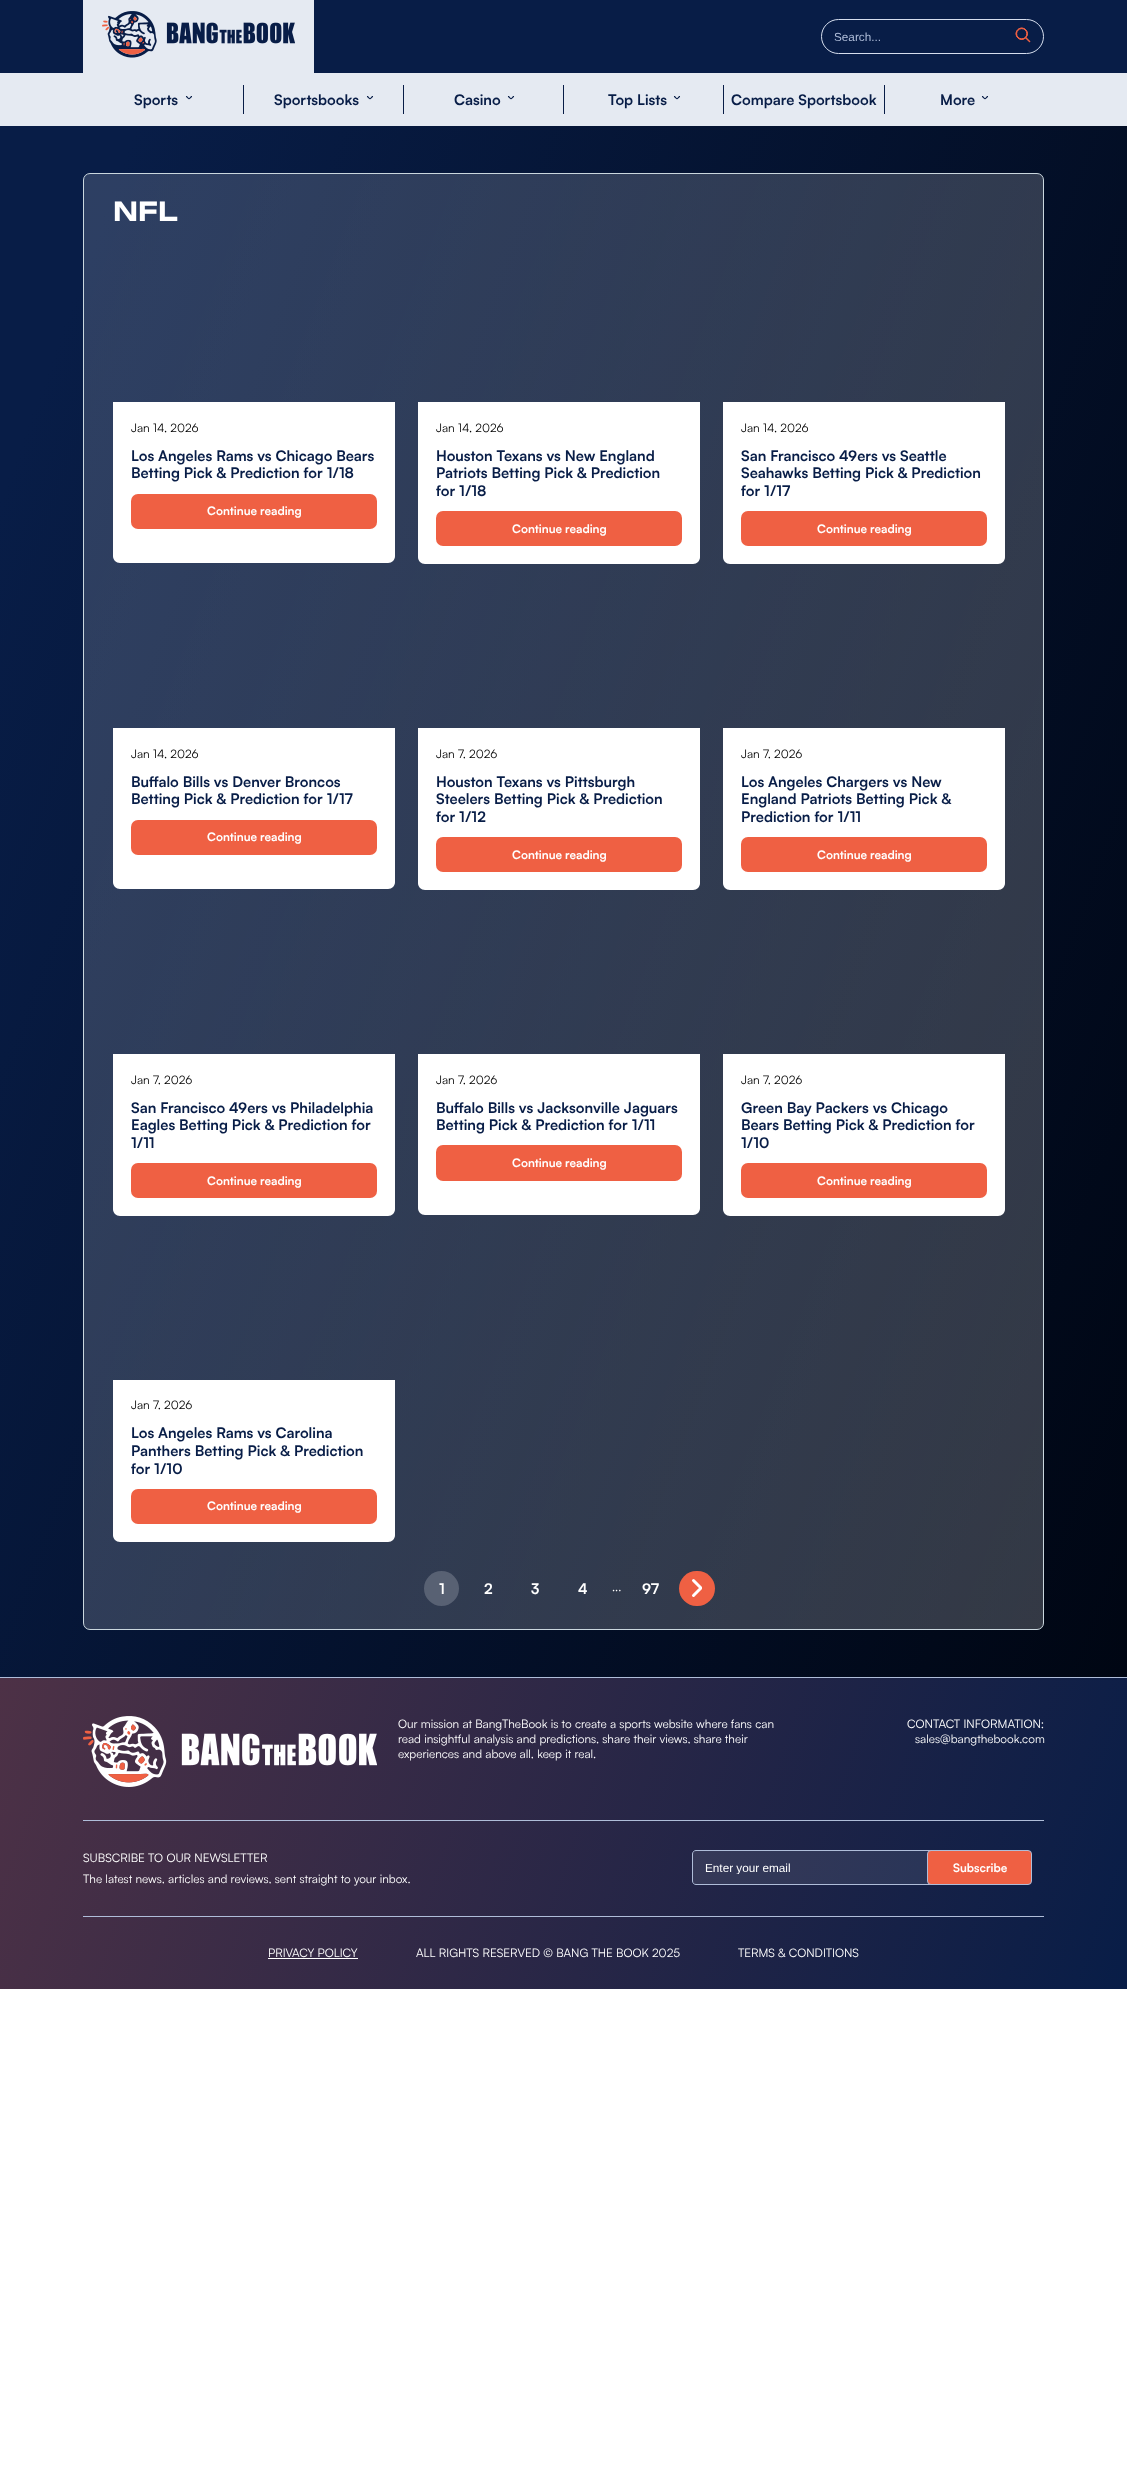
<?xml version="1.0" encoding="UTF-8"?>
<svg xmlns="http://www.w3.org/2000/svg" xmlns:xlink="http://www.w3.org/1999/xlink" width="1127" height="2473">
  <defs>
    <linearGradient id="g1" gradientUnits="userSpaceOnUse" x1="-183" y1="630" x2="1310" y2="1173"><stop offset="0.08" stop-color="#081d47" /><stop offset="1" stop-color="#000613" /></linearGradient>
    <clipPath id="clip1"><rect x="83" y="173" width="961" height="1457" rx="7" /></clipPath>
    <linearGradient id="g2" gradientUnits="userSpaceOnUse" x1="-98" y1="648" x2="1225" y2="1155"><stop offset="0" stop-color="#ffffff" stop-opacity="0.15" /><stop offset="1" stop-color="#ffffff" stop-opacity="0.2" /></linearGradient>
    <linearGradient id="g3" gradientUnits="userSpaceOnUse" x1="12" y1="1644" x2="1115" y2="2023"><stop offset="0" stop-color="#643846" /><stop offset="0" stop-color="#4d3146" /><stop offset="1" stop-color="#081d47" /></linearGradient>
    <clipPath id="clip2"><rect x="705" y="1861" width="221" height="13" /></clipPath>
  </defs>
  <rect width="100%" height="100%" fill="#ffffff" />
  <rect width="1127" height="73" fill="#081d47" />
  <rect x="83" width="231" height="73" fill="#e5eaf2" />
  <image x="102" y="11" width="193" height="47" xlink:href="image1.png" />
  <rect x="821.5" y="19.5" width="222" height="34" rx="17" fill="none" stroke="#d6deee" />
  <image x="1015" y="27" width="16" height="16" xlink:href="image2.png" />
  <rect y="73" width="1127" height="53" fill="#e5eaf2" />
  <path d="M 186.5 96.5 c 3 3 2 3 5 0" fill="none" stroke="#081d47" stroke-width="1.1" stroke-linecap="round" />
  <rect x="243" y="85" width="1" height="29" fill="#081d47" />
  <path d="M 367.5 96.5 c 3 3 2 3 5 0" fill="none" stroke="#081d47" stroke-width="1.1" stroke-linecap="round" />
  <rect x="403" y="85" width="1" height="29" fill="#081d47" />
  <path d="M 508.5 96.5 c 3 3 2 3 5 0" fill="none" stroke="#081d47" stroke-width="1.1" stroke-linecap="round" />
  <rect x="563" y="85" width="1" height="29" fill="#081d47" />
  <path d="M 674.5 96.5 c 3 3 2 3 5 0" fill="none" stroke="#081d47" stroke-width="1.1" stroke-linecap="round" />
  <rect x="723" y="85" width="1" height="29" fill="#081d47" />
  <rect x="884" y="85" width="1" height="29" fill="#081d47" />
  <path d="M 982.5 96.5 c 3 3 2 3 5 0" fill="none" stroke="#081d47" stroke-width="1.1" stroke-linecap="round" />
  <rect y="126" width="1127" height="1551" fill="url(#g1)" />
  <g clip-path="url(#clip1)">
    <rect x="84" y="174" width="959" height="1455" fill="url(#g2)" />
  </g>
  <rect x="83.5" y="173.5" width="960" height="1456" rx="6.5" fill="none" stroke="#cad7de" />
  <path d="M 113 402 h 282 v 154 c 0 4 -3 7 -7 7 h -268 c -4 0 -7 -3 -7 -7 z" fill="#ffffff" />
  <rect x="131" y="494" width="246" height="35" rx="7" fill="#ef6043" />
  <path d="M 418 402 h 282 v 155 c 0 4 -3 7 -7 7 h -268 c -4 0 -7 -3 -7 -7 z" fill="#ffffff" />
  <rect x="436" y="511" width="246" height="35" rx="7" fill="#ef6043" />
  <path d="M 723 402 h 282 v 155 c 0 4 -3 7 -7 7 h -268 c -4 0 -7 -3 -7 -7 z" fill="#ffffff" />
  <rect x="741" y="511" width="246" height="35" rx="7" fill="#ef6043" />
  <path d="M 113 728 h 282 v 154 c 0 4 -3 7 -7 7 h -268 c -4 0 -7 -3 -7 -7 z" fill="#ffffff" />
  <rect x="131" y="820" width="246" height="35" rx="7" fill="#ef6043" />
  <path d="M 418 728 h 282 v 155 c 0 4 -3 7 -7 7 h -268 c -4 0 -7 -3 -7 -7 z" fill="#ffffff" />
  <rect x="436" y="837" width="246" height="35" rx="7" fill="#ef6043" />
  <path d="M 723 728 h 282 v 155 c 0 4 -3 7 -7 7 h -268 c -4 0 -7 -3 -7 -7 z" fill="#ffffff" />
  <rect x="741" y="837" width="246" height="35" rx="7" fill="#ef6043" />
  <path d="M 113 1054 h 282 v 155 c 0 4 -3 7 -7 7 h -268 c -4 0 -7 -3 -7 -7 z" fill="#ffffff" />
  <rect x="131" y="1163" width="246" height="35" rx="7" fill="#ef6043" />
  <path d="M 418 1054 h 282 v 154 c 0 4 -3 7 -7 7 h -268 c -4 0 -7 -3 -7 -7 z" fill="#ffffff" />
  <rect x="436" y="1145" width="246" height="36" rx="7" fill="#ef6043" />
  <path d="M 723 1054 h 282 v 155 c 0 4 -3 7 -7 7 h -268 c -4 0 -7 -3 -7 -7 z" fill="#ffffff" />
  <rect x="741" y="1163" width="246" height="35" rx="7" fill="#ef6043" />
  <path d="M 113 1380 h 282 v 155 c 0 4 -3 7 -7 7 h -268 c -4 0 -7 -3 -7 -7 z" fill="#ffffff" />
  <rect x="131" y="1489" width="246" height="35" rx="7" fill="#ef6043" />
  <circle cx="441.5" cy="1588.5" r="17.5" fill="#586173" />
  <rect x="679" y="1571" width="36" height="35" rx="17.5" fill="#ef6043" />
  <path d="M 693.5 1595.5 l 7 -7 c 0 0 0 -1 0 -1 l -7 -7" fill="none" stroke="#ffffff" stroke-width="3" stroke-linecap="round" />
  <rect y="1677" width="1127" height="1" fill="#afbdd9" />
  <rect y="1678" width="1127" height="311" fill="url(#g3)" />
  <rect x="83" y="1820" width="961" height="1" fill="#afbdd9" />
  <image x="83" y="1716" width="294" height="71" xlink:href="image3.png" />
  <rect x="83" y="1916" width="961" height="1" fill="#afbdd9" />
  <path d="M 696 1850.5 h 242.5 v 34 h -242.5 c -2 0 -3.5 -1.5 -3.5 -3.5 v -27 c 0 -2 1.5 -3.5 3.5 -3.5 z" fill="#e5eaf2" fill-opacity="0.1" stroke="#afbdd9" />
  <rect x="927.5" y="1850.5" width="104" height="34" rx="3.5" fill="#ef6043" stroke="#afbdd9" />
  <rect x="268" y="1958" width="90" height="1" fill="#ffffff" />
  <text x="834" y="41" style="font-family: Liberation Sans; font-size: 11.75px; fill: #afbdd9">Search...</text>
  <text x="134" y="105" style="font-family: Satoshi; font-size: 14.6px; font-weight: bold; fill: #081d47">Sports</text>
  <text x="274" y="105" style="font-family: Satoshi; font-size: 14.6px; font-weight: bold; fill: #081d47">Sportsbooks</text>
  <text x="454" y="105" style="font-family: Satoshi; font-size: 14.6px; font-weight: bold; fill: #081d47">Casino</text>
  <text x="608" y="105" style="font-family: Satoshi; font-size: 14.6px; font-weight: bold; fill: #081d47">Top Lists</text>
  <text x="731" y="105" style="font-family: Satoshi; font-size: 14.6px; font-weight: bold; fill: #081d47">Compare Sportsbook</text>
  <text x="940" y="105" style="font-family: Satoshi; font-size: 14.6px; font-weight: bold; fill: #081d47">More</text>
  <text x="113" y="221" style="font-family: Unbounded; font-size: 26px; font-weight: 600; fill: #ffffff">NFL</text>
  <text x="131" y="432" style="font-family: Satoshi; font-size: 11.75px; fill: #000000">Jan 14, 2026</text>
  <text x="131" y="461" style="font-family: Satoshi; font-size: 14.6px; font-weight: bold; fill: #081d47">Los Angeles Rams vs Chicago Bears</text>
  <text x="131" y="478" style="font-family: Satoshi; font-size: 14.6px; font-weight: bold; fill: #081d47">Betting Pick &amp; Prediction for 1/18</text>
  <text x="207" y="515" style="font-family: Satoshi; font-size: 11.75px; font-weight: bold; fill: #ffffff">Continue reading</text>
  <text x="436" y="432" style="font-family: Satoshi; font-size: 11.75px; fill: #000000">Jan 14, 2026</text>
  <text x="436" y="461" style="font-family: Satoshi; font-size: 14.6px; font-weight: bold; fill: #081d47">Houston Texans vs New England</text>
  <text x="436" y="478" style="font-family: Satoshi; font-size: 14.6px; font-weight: bold; fill: #081d47">Patriots Betting Pick &amp; Prediction</text>
  <text x="436" y="496" style="font-family: Satoshi; font-size: 14.6px; font-weight: bold; fill: #081d47">for 1/18</text>
  <text x="512" y="533" style="font-family: Satoshi; font-size: 11.75px; font-weight: bold; fill: #ffffff">Continue reading</text>
  <text x="741" y="432" style="font-family: Satoshi; font-size: 11.75px; fill: #000000">Jan 14, 2026</text>
  <text x="741" y="461" style="font-family: Satoshi; font-size: 14.6px; font-weight: bold; fill: #081d47">San Francisco 49ers vs Seattle</text>
  <text x="741" y="478" style="font-family: Satoshi; font-size: 14.6px; font-weight: bold; fill: #081d47">Seahawks Betting Pick &amp; Prediction</text>
  <text x="741" y="496" style="font-family: Satoshi; font-size: 14.6px; font-weight: bold; fill: #081d47">for 1/17</text>
  <text x="817" y="533" style="font-family: Satoshi; font-size: 11.75px; font-weight: bold; fill: #ffffff">Continue reading</text>
  <text x="131" y="758" style="font-family: Satoshi; font-size: 11.75px; fill: #000000">Jan 14, 2026</text>
  <text x="131" y="787" style="font-family: Satoshi; font-size: 14.6px; font-weight: bold; fill: #081d47">Buffalo Bills vs Denver Broncos</text>
  <text x="131" y="804" style="font-family: Satoshi; font-size: 14.6px; font-weight: bold; fill: #081d47">Betting Pick &amp; Prediction for 1/17</text>
  <text x="207" y="841" style="font-family: Satoshi; font-size: 11.75px; font-weight: bold; fill: #ffffff">Continue reading</text>
  <text x="436" y="758" style="font-family: Satoshi; font-size: 11.75px; fill: #000000">Jan 7, 2026</text>
  <text x="436" y="787" style="font-family: Satoshi; font-size: 14.6px; font-weight: bold; fill: #081d47">Houston Texans vs Pittsburgh</text>
  <text x="436" y="804" style="font-family: Satoshi; font-size: 14.6px; font-weight: bold; fill: #081d47">Steelers Betting Pick &amp; Prediction</text>
  <text x="436" y="822" style="font-family: Satoshi; font-size: 14.6px; font-weight: bold; fill: #081d47">for 1/12</text>
  <text x="512" y="859" style="font-family: Satoshi; font-size: 11.75px; font-weight: bold; fill: #ffffff">Continue reading</text>
  <text x="741" y="758" style="font-family: Satoshi; font-size: 11.75px; fill: #000000">Jan 7, 2026</text>
  <text x="741" y="787" style="font-family: Satoshi; font-size: 14.6px; font-weight: bold; fill: #081d47">Los Angeles Chargers vs New</text>
  <text x="741" y="804" style="font-family: Satoshi; font-size: 14.6px; font-weight: bold; fill: #081d47">England Patriots Betting Pick &amp;</text>
  <text x="741" y="822" style="font-family: Satoshi; font-size: 14.6px; font-weight: bold; fill: #081d47">Prediction for 1/11</text>
  <text x="817" y="859" style="font-family: Satoshi; font-size: 11.75px; font-weight: bold; fill: #ffffff">Continue reading</text>
  <text x="131" y="1084" style="font-family: Satoshi; font-size: 11.75px; fill: #000000">Jan 7, 2026</text>
  <text x="131" y="1113" style="font-family: Satoshi; font-size: 14.6px; font-weight: bold; fill: #081d47">San Francisco 49ers vs Philadelphia</text>
  <text x="131" y="1130" style="font-family: Satoshi; font-size: 14.6px; font-weight: bold; fill: #081d47">Eagles Betting Pick &amp; Prediction for</text>
  <text x="131" y="1148" style="font-family: Satoshi; font-size: 14.6px; font-weight: bold; fill: #081d47">1/11</text>
  <text x="207" y="1185" style="font-family: Satoshi; font-size: 11.75px; font-weight: bold; fill: #ffffff">Continue reading</text>
  <text x="436" y="1084" style="font-family: Satoshi; font-size: 11.75px; fill: #000000">Jan 7, 2026</text>
  <text x="436" y="1113" style="font-family: Satoshi; font-size: 14.6px; font-weight: bold; fill: #081d47">Buffalo Bills vs Jacksonville Jaguars</text>
  <text x="436" y="1130" style="font-family: Satoshi; font-size: 14.6px; font-weight: bold; fill: #081d47">Betting Pick &amp; Prediction for 1/11</text>
  <text x="512" y="1167" style="font-family: Satoshi; font-size: 11.75px; font-weight: bold; fill: #ffffff">Continue reading</text>
  <text x="741" y="1084" style="font-family: Satoshi; font-size: 11.75px; fill: #000000">Jan 7, 2026</text>
  <text x="741" y="1113" style="font-family: Satoshi; font-size: 14.6px; font-weight: bold; fill: #081d47">Green Bay Packers vs Chicago</text>
  <text x="741" y="1130" style="font-family: Satoshi; font-size: 14.6px; font-weight: bold; fill: #081d47">Bears Betting Pick &amp; Prediction for</text>
  <text x="741" y="1148" style="font-family: Satoshi; font-size: 14.6px; font-weight: bold; fill: #081d47">1/10</text>
  <text x="817" y="1185" style="font-family: Satoshi; font-size: 11.75px; font-weight: bold; fill: #ffffff">Continue reading</text>
  <text x="131" y="1409" style="font-family: Satoshi; font-size: 11.75px; fill: #000000">Jan 7, 2026</text>
  <text x="131" y="1438" style="font-family: Satoshi; font-size: 14.6px; font-weight: bold; fill: #081d47">Los Angeles Rams vs Carolina</text>
  <text x="131" y="1456" style="font-family: Satoshi; font-size: 14.6px; font-weight: bold; fill: #081d47">Panthers Betting Pick &amp; Prediction</text>
  <text x="131" y="1474" style="font-family: Satoshi; font-size: 14.6px; font-weight: bold; fill: #081d47">for 1/10</text>
  <text x="207" y="1510" style="font-family: Satoshi; font-size: 11.75px; font-weight: bold; fill: #ffffff">Continue reading</text>
  <text x="439" y="1594" style="font-family: Satoshi; font-size: 14.6px; font-weight: bold; fill: #ffffff">1</text>
  <text x="484" y="1594" style="font-family: Satoshi; font-size: 14.6px; font-weight: bold; fill: #ffffff">2</text>
  <text x="531" y="1594" style="font-family: Satoshi; font-size: 14.6px; font-weight: bold; fill: #ffffff">3</text>
  <text x="578" y="1594" style="font-family: Satoshi; font-size: 14.6px; font-weight: bold; fill: #ffffff">4</text>
  <text x="612" y="1591" style="font-family: Satoshi; font-size: 11.75px; fill: #ffffff">...</text>
  <text x="642" y="1594" style="font-family: Satoshi; font-size: 14.6px; font-weight: bold; fill: #ffffff">97</text>
  <text x="398" y="1728" style="font-family: Satoshi; font-size: 11.75px; fill: #ffffff">Our mission at BangTheBook is to create a sports website where fans can</text>
  <text x="398" y="1743" style="font-family: Satoshi; font-size: 11.75px; fill: #ffffff">read insightful analysis and predictions, share their views, share their</text>
  <text x="398" y="1758" style="font-family: Satoshi; font-size: 11.75px; fill: #ffffff">experiences and above all, keep it real.</text>
  <text x="907" y="1728" style="font-family: Satoshi; font-size: 11.75px; fill: #ffffff">CONTACT INFORMATION:</text>
  <text x="915" y="1743" style="font-family: Satoshi; font-size: 11.75px; fill: #ffffff">sales@bangthebook.com</text>
  <text x="83" y="1862" style="font-family: Satoshi; font-size: 11.75px; fill: #ffffff">SUBSCRIBE TO OUR NEWSLETTER</text>
  <text x="83" y="1883" style="font-family: Satoshi; font-size: 11.75px; fill: #ffffff">The latest news, articles and reviews, sent straight to your inbox.</text>
  <g clip-path="url(#clip2)">
    <text x="705" y="1872" style="font-family: Liberation Sans; font-size: 11.75px; fill: #ffffff">Enter your email</text>
  </g>
  <text x="953" y="1872" style="font-family: Satoshi; font-size: 11.75px; font-weight: bold; fill: #ffffff">Subscribe</text>
  <text x="268" y="1957" style="font-family: Satoshi; font-size: 11.75px; fill: #ffffff">PRIVACY POLICY</text>
  <text x="416" y="1957" style="font-family: Satoshi; font-size: 11.75px; fill: #ffffff">ALL RIGHTS RESERVED © BANG THE BOOK 2025</text>
  <text x="738" y="1957" style="font-family: Satoshi; font-size: 11.75px; fill: #ffffff">TERMS &amp; CONDITIONS</text>
</svg>
